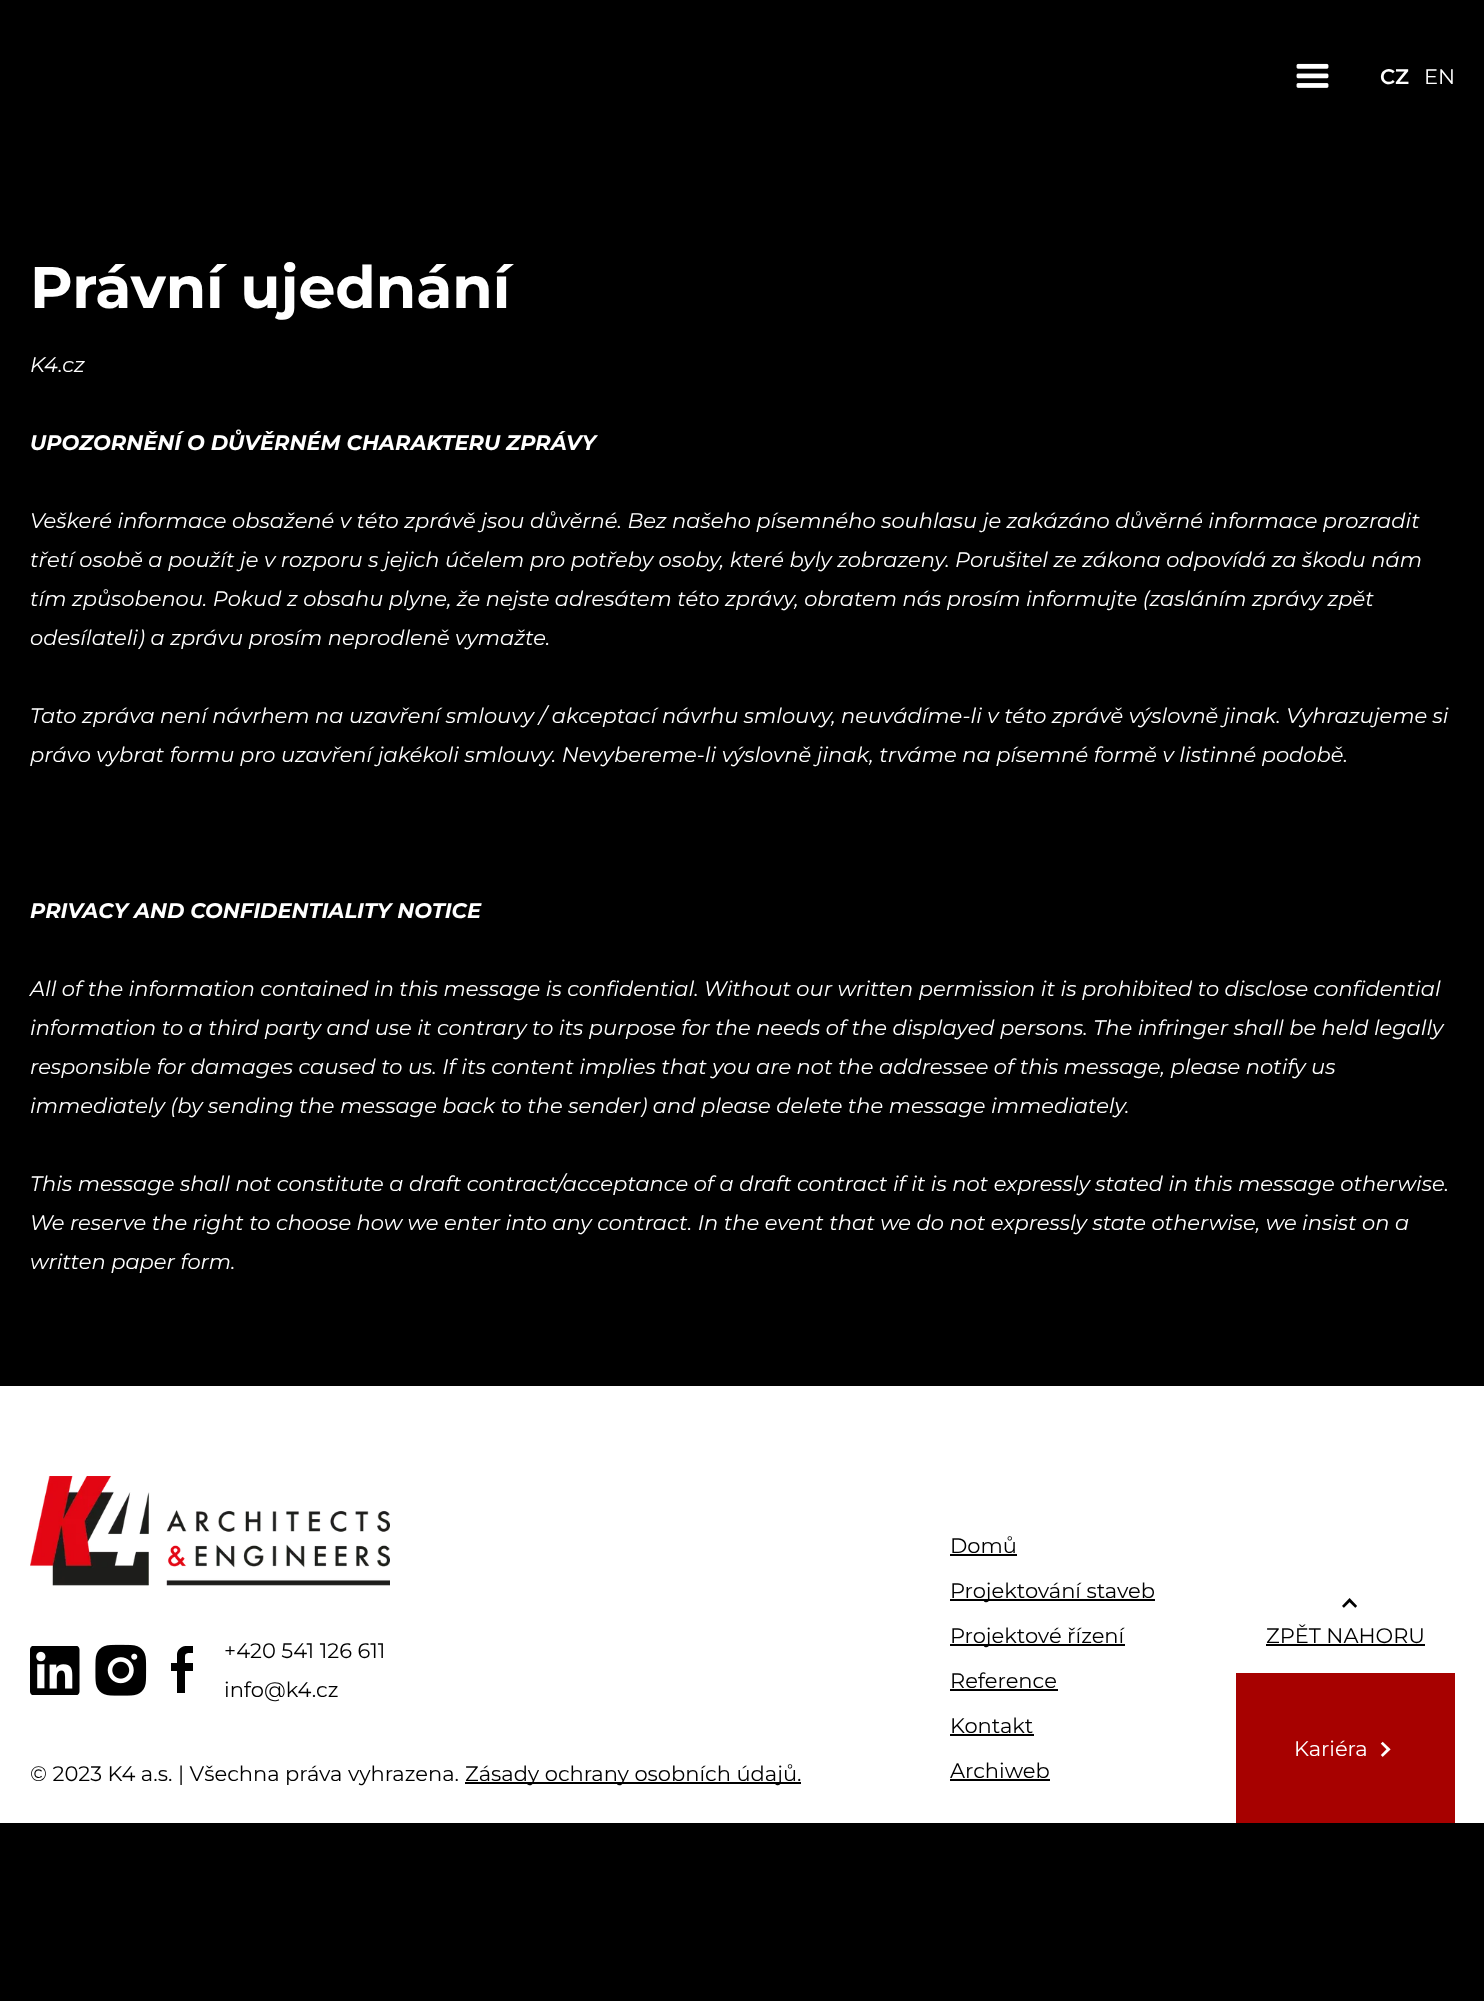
<?xml version="1.0" encoding="UTF-8"?>
<svg xmlns="http://www.w3.org/2000/svg" xmlns:xlink="http://www.w3.org/1999/xlink" width="1484" height="2001">
  <defs>
    <clipPath id="clip1"><rect x="171" y="1646" width="23" height="48" /></clipPath>
  </defs>
  <rect width="100%" height="100%" fill="#000000" />
  <image x="1296" y="63" width="33" height="25" xlink:href="image1.png" />
  <rect y="1386" width="1484" height="437" fill="#ffffff" />
  <image x="30" y="1476" width="360" height="110" xlink:href="image2.png" />
  <image x="30" y="1646" width="50" height="49" xlink:href="image3.png" />
  <image x="95" y="1644" width="52" height="52" xlink:href="image4.png" />
  <g clip-path="url(#clip1)">
    <path d="M 177 1693 v -22 h -6 v -8 h 6 v -9 c 1 -8 10 -9 16 -8 v 7 c -9 0 -8 0 -8 10 h 8 v 8 h -8 v 22 z" fill="#000000" />
  </g>
  <rect x="465" y="1782" width="336" height="2" fill="#000000" />
  <rect x="950" y="1554" width="67" height="2" fill="#000000" />
  <rect x="950" y="1599" width="205" height="2" fill="#000000" />
  <rect x="950" y="1644" width="175" height="2" fill="#000000" />
  <rect x="950" y="1689" width="108" height="2" fill="#000000" />
  <rect x="950" y="1734" width="84" height="2" fill="#000000" />
  <rect x="950" y="1779" width="100" height="2" fill="#000000" />
  <image x="1342" y="1598" width="15" height="10" xlink:href="image5.png" />
  <rect x="1266" y="1644" width="159" height="2" fill="#000000" />
  <rect x="1236" y="1673" width="219" height="150" fill="#a70100" />
  <image x="1380" y="1741" width="11" height="16" xlink:href="image6.png" />
  <text x="1380" y="84" style="font-family: Montserrat; font-size: 21px; font-weight: 600; fill: #ffffff">CZ</text>
  <text x="1424" y="84" style="font-family: Montserrat; font-size: 21px; fill: #ffffff">EN</text>
  <text x="30" y="308" style="font-family: Montserrat; font-size: 58.5px; font-weight: bold; fill: #ffffff">Právní ujednání</text>
  <text x="30" y="372" style="font-family: Montserrat; font-size: 21px; font-style: italic; fill: #ffffff">K4.cz</text>
  <text x="30" y="450" style="font-family: Montserrat; font-size: 21px; font-weight: bold; font-style: italic; fill: #ffffff">UPOZORNĚNÍ O DŮVĚRNÉM CHARAKTERU ZPRÁVY</text>
  <text x="30" y="528" style="font-family: Montserrat; font-size: 21px; font-style: italic; fill: #ffffff">Veškeré informace obsažené v této zprávě jsou důvěrné. Bez našeho písemného souhlasu je zakázáno důvěrné informace prozradit</text>
  <text x="30" y="567" style="font-family: Montserrat; font-size: 21px; font-style: italic; fill: #ffffff">třetí osobě a použít je v rozporu s jejich účelem pro potřeby osoby, které byly zobrazeny. Porušitel ze zákona odpovídá za škodu nám</text>
  <text x="30" y="606" style="font-family: Montserrat; font-size: 21px; font-style: italic; fill: #ffffff">tím způsobenou. Pokud z obsahu plyne, že nejste adresátem této zprávy, obratem nás prosím informujte (zasláním zprávy zpět</text>
  <text x="30" y="645" style="font-family: Montserrat; font-size: 21px; font-style: italic; fill: #ffffff">odesílateli) a zprávu prosím neprodleně vymažte.</text>
  <text x="30" y="723" style="font-family: Montserrat; font-size: 21px; font-style: italic; fill: #ffffff">Tato zpráva není návrhem na uzavření smlouvy / akceptací návrhu smlouvy, neuvádíme-li v této zprávě výslovně jinak. Vyhrazujeme si</text>
  <text x="30" y="762" style="font-family: Montserrat; font-size: 21px; font-style: italic; fill: #ffffff">právo vybrat formu pro uzavření jakékoli smlouvy. Nevybereme-li výslovně jinak, trváme na písemné formě v listinné podobě.</text>
  <text x="30" y="918" style="font-family: Montserrat; font-size: 21px; font-weight: bold; font-style: italic; fill: #ffffff">PRIVACY AND CONFIDENTIALITY NOTICE</text>
  <text x="30" y="996" style="font-family: Montserrat; font-size: 21px; font-style: italic; fill: #ffffff">All of the information contained in this message is confidential. Without our written permission it is prohibited to disclose confidential</text>
  <text x="30" y="1035" style="font-family: Montserrat; font-size: 21px; font-style: italic; fill: #ffffff">information to a third party and use it contrary to its purpose for the needs of the displayed persons. The infringer shall be held legally</text>
  <text x="30" y="1074" style="font-family: Montserrat; font-size: 21px; font-style: italic; fill: #ffffff">responsible for damages caused to us. If its content implies that you are not the addressee of this message, please notify us</text>
  <text x="30" y="1113" style="font-family: Montserrat; font-size: 21px; font-style: italic; fill: #ffffff">immediately (by sending the message back to the sender) and please delete the message immediately.</text>
  <text x="30" y="1191" style="font-family: Montserrat; font-size: 21px; font-style: italic; fill: #ffffff">This message shall not constitute a draft contract/acceptance of a draft contract if it is not expressly stated in this message otherwise.</text>
  <text x="30" y="1230" style="font-family: Montserrat; font-size: 21px; font-style: italic; fill: #ffffff">We reserve the right to choose how we enter into any contract. In the event that we do not expressly state otherwise, we insist on a</text>
  <text x="30" y="1269" style="font-family: Montserrat; font-size: 21px; font-style: italic; fill: #ffffff">written paper form.</text>
  <text x="224" y="1658" style="font-family: Montserrat; font-size: 21px; fill: #000000">+420 541 126 611</text>
  <text x="224" y="1697" style="font-family: Montserrat; font-size: 21px; fill: #000000">info@k4.cz</text>
  <text x="30" y="1781" style="font-family: Montserrat; font-size: 21px; fill: #000000">© 2023 K4 a.s. | Všechna práva vyhrazena.</text>
  <text x="465" y="1781" style="font-family: Montserrat; font-size: 21px; fill: #000000">Zásady ochrany osobních údajů.</text>
  <text x="950" y="1553" style="font-family: Montserrat; font-size: 21px; fill: #000000">Domů</text>
  <text x="950" y="1598" style="font-family: Montserrat; font-size: 21px; fill: #000000">Projektování staveb</text>
  <text x="950" y="1643" style="font-family: Montserrat; font-size: 21px; fill: #000000">Projektové řízení</text>
  <text x="950" y="1688" style="font-family: Montserrat; font-size: 21px; fill: #000000">Reference</text>
  <text x="950" y="1733" style="font-family: Montserrat; font-size: 21px; fill: #000000">Kontakt</text>
  <text x="950" y="1778" style="font-family: Montserrat; font-size: 21px; fill: #000000">Archiweb</text>
  <text x="1266" y="1643" style="font-family: Montserrat; font-size: 21px; fill: #000000">ZPĚT NAHORU</text>
  <text x="1294" y="1756" style="font-family: Montserrat; font-size: 21px; fill: #ffffff">Kariéra</text>
</svg>
